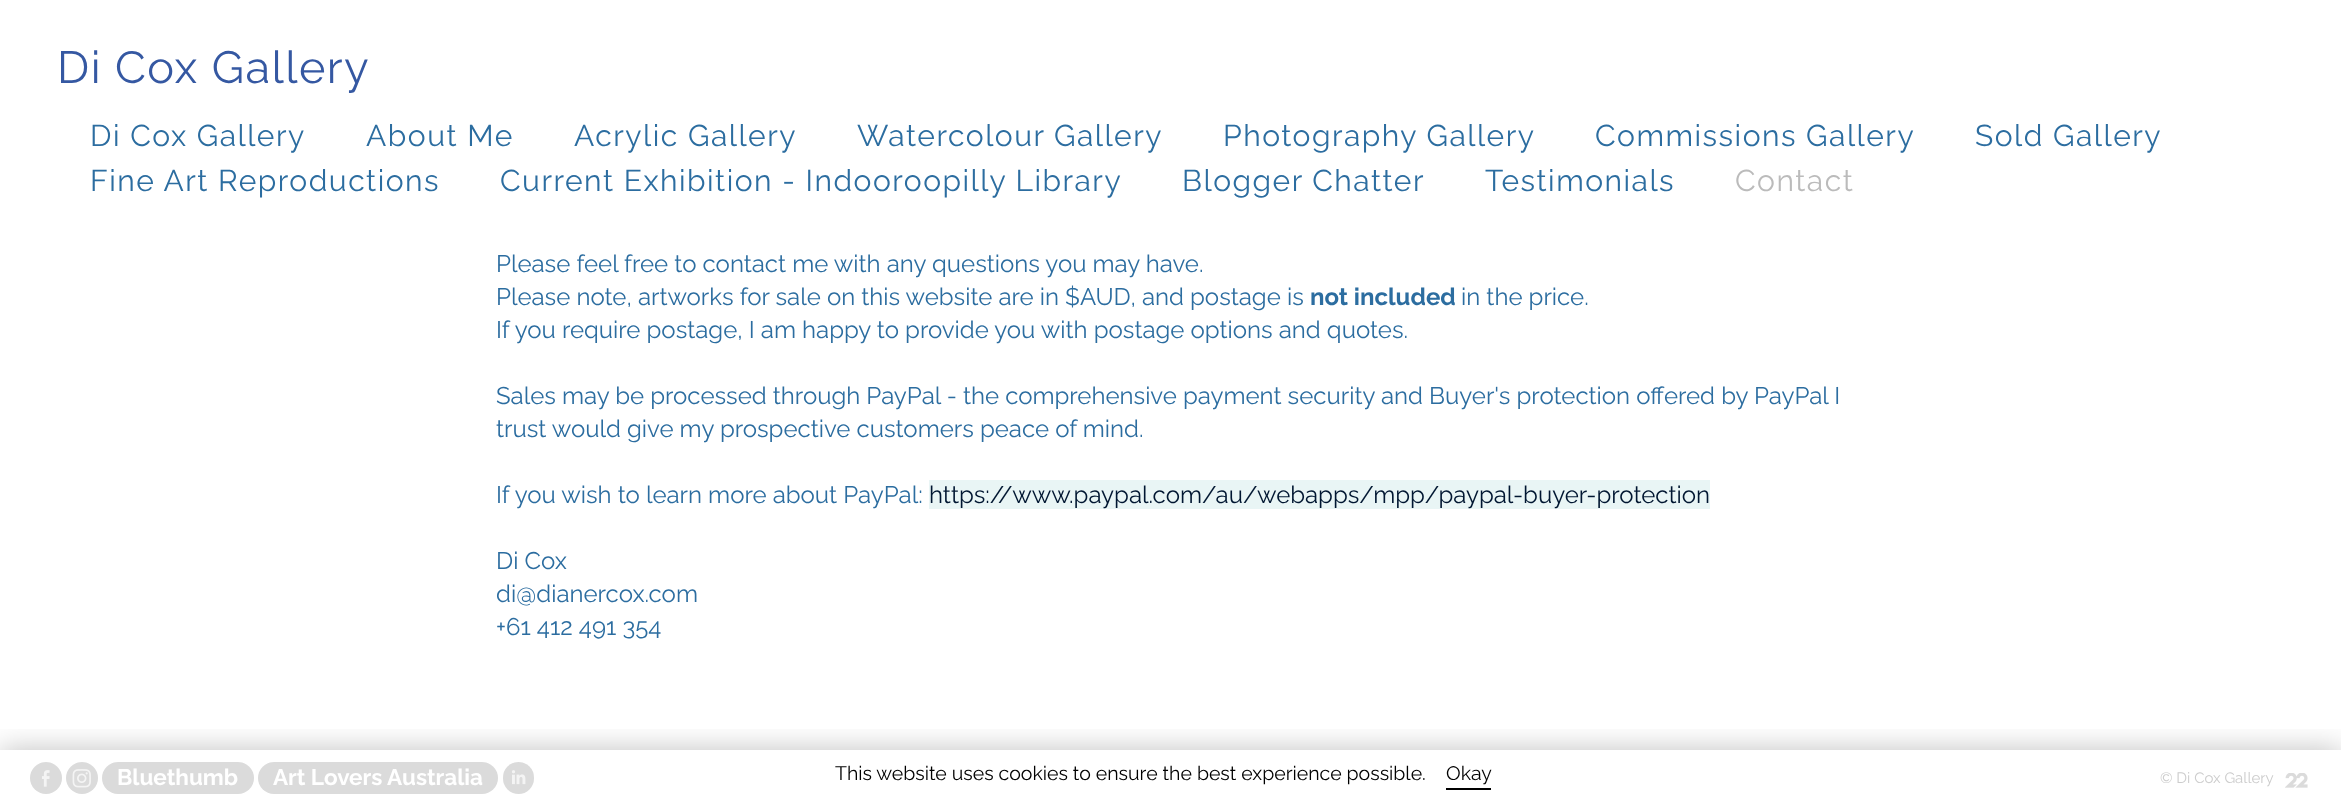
<?xml version="1.0" encoding="UTF-8"?>
<svg xmlns="http://www.w3.org/2000/svg" xmlns:xlink="http://www.w3.org/1999/xlink" width="2341" height="805">
  <defs>
    <clipPath id="clip1"><rect x="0" y="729" width="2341" height="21" /></clipPath>
  </defs>
  <rect width="100%" height="100%" fill="#ffffff" />
  <rect x="929" y="480" width="781" height="29" fill="#e9f5f5" />
  <circle cx="46" cy="778" r="16" fill="#dbdbdb" />
  <image x="41" y="770" width="9" height="17" xlink:href="image1.png" />
  <circle cx="82" cy="778" r="16" fill="#dbdbdb" />
  <image x="72" y="769" width="19" height="19" xlink:href="image2.png" />
  <rect x="102" y="762" width="152" height="32" rx="16" fill="#dbdbdb" />
  <rect x="258" y="762" width="240" height="32" rx="16" fill="#dbdbdb" />
  <rect x="503" y="762" width="31" height="32" rx="15.5" fill="#dbdbdb" />
  <image x="511" y="770" width="15" height="15" xlink:href="image3.png" />
  <image x="2285" y="773" width="23" height="15" xlink:href="image4.png" />
  <g clip-path="url(#clip1)">
    <rect y="750" width="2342" height="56" fill="#000000" fill-opacity="0.25" filter="blur(15px)" />
  </g>
  <rect x="1446" y="788" width="45" height="2" fill="#000000" />
  <text x="57" y="83" style="font-family: Raleway; font-size: 45px; letter-spacing: 1.5px; fill: #3558a2">Di Cox Gallery</text>
  <text x="90" y="146" style="font-family: Raleway; font-size: 30px; letter-spacing: 1.5px; fill: #2c6da0">Di Cox Gallery</text>
  <text x="366" y="146" style="font-family: Raleway; font-size: 30px; letter-spacing: 1.5px; fill: #2c6da0">About Me</text>
  <text x="574" y="146" style="font-family: Raleway; font-size: 30px; letter-spacing: 1.5px; fill: #2c6da0">Acrylic Gallery</text>
  <text x="857" y="146" style="font-family: Raleway; font-size: 30px; letter-spacing: 1.5px; fill: #2c6da0">Watercolour Gallery</text>
  <text x="1223" y="146" style="font-family: Raleway; font-size: 30px; letter-spacing: 1.5px; fill: #2c6da0">Photography Gallery</text>
  <text x="1595" y="146" style="font-family: Raleway; font-size: 30px; letter-spacing: 1.5px; fill: #2c6da0">Commissions Gallery</text>
  <text x="1975" y="146" style="font-family: Raleway; font-size: 30px; letter-spacing: 1.5px; fill: #2c6da0">Sold Gallery</text>
  <text x="90" y="191" style="font-family: Raleway; font-size: 30px; letter-spacing: 1.5px; fill: #2c6da0">Fine Art Reproductions</text>
  <text x="500" y="191" style="font-family: Raleway; font-size: 30px; letter-spacing: 1.5px; fill: #2c6da0">Current Exhibition - Indooroopilly Library</text>
  <text x="1182" y="191" style="font-family: Raleway; font-size: 30px; letter-spacing: 1.5px; fill: #2c6da0">Blogger Chatter</text>
  <text x="1485" y="191" style="font-family: Raleway; font-size: 30px; letter-spacing: 1.5px; fill: #2c6da0">Testimonials</text>
  <text x="1735" y="191" style="font-family: Raleway; font-size: 30px; letter-spacing: 1.5px; fill: #bbbbbb">Contact</text>
  <text x="496" y="272" style="font-family: Raleway; font-size: 24px; fill: #2c6da0">Please feel free to contact me with any questions you may have.</text>
  <text x="496" y="305" style="font-family: Raleway; font-size: 24px; fill: #2c6da0">Please note, artworks for sale on this website are in $AUD, and postage is</text>
  <text x="1310" y="305" style="font-family: Raleway; font-size: 24px; font-weight: bold; fill: #2c6da0">not included</text>
  <text x="1461" y="305" style="font-family: Raleway; font-size: 24px; fill: #2c6da0">in the price.</text>
  <text x="496" y="338" style="font-family: Raleway; font-size: 24px; fill: #2c6da0">If you require postage, I am happy to provide you with postage options and quotes.</text>
  <text x="496" y="404" style="font-family: Raleway; font-size: 24px; fill: #2c6da0">Sales may be processed through PayPal - the comprehensive payment security and Buyer's protection offered by PayPal I</text>
  <text x="496" y="437" style="font-family: Raleway; font-size: 24px; fill: #2c6da0">trust would give my prospective customers peace of mind.</text>
  <text x="496" y="503" style="font-family: Raleway; font-size: 24px; fill: #2c6da0">If you wish to learn more about PayPal:</text>
  <text x="929" y="503" style="font-family: Raleway; font-size: 24px; fill: #001631">https://www.paypal.com/au/webapps/mpp/paypal-buyer-protection</text>
  <text x="496" y="569" style="font-family: Raleway; font-size: 24px; fill: #2c6da0">Di Cox</text>
  <text x="496" y="602" style="font-family: Raleway; font-size: 24px; fill: #2c6da0">di@dianercox.com</text>
  <text x="496" y="635" style="font-family: Raleway; font-size: 24px; fill: #2c6da0">+61 412 491 354</text>
  <text x="117" y="785" style="font-family: Raleway; font-size: 22.5px; font-weight: bold; fill: #ffffff">Bluethumb</text>
  <text x="273" y="785" style="font-family: Raleway; font-size: 22.5px; font-weight: bold; fill: #ffffff">Art Lovers Australia</text>
  <text x="2160" y="783" style="font-family: Raleway; font-size: 15px; fill: #cccccc">© Di Cox Gallery</text>
  <text x="835" y="780" style="font-family: Raleway; font-size: 19.5px; fill: #000000">This website uses cookies to ensure the best experience possible.</text>
  <text x="1446" y="780" style="font-family: Raleway; font-size: 19.5px; fill: #000000">Okay</text>
</svg>
